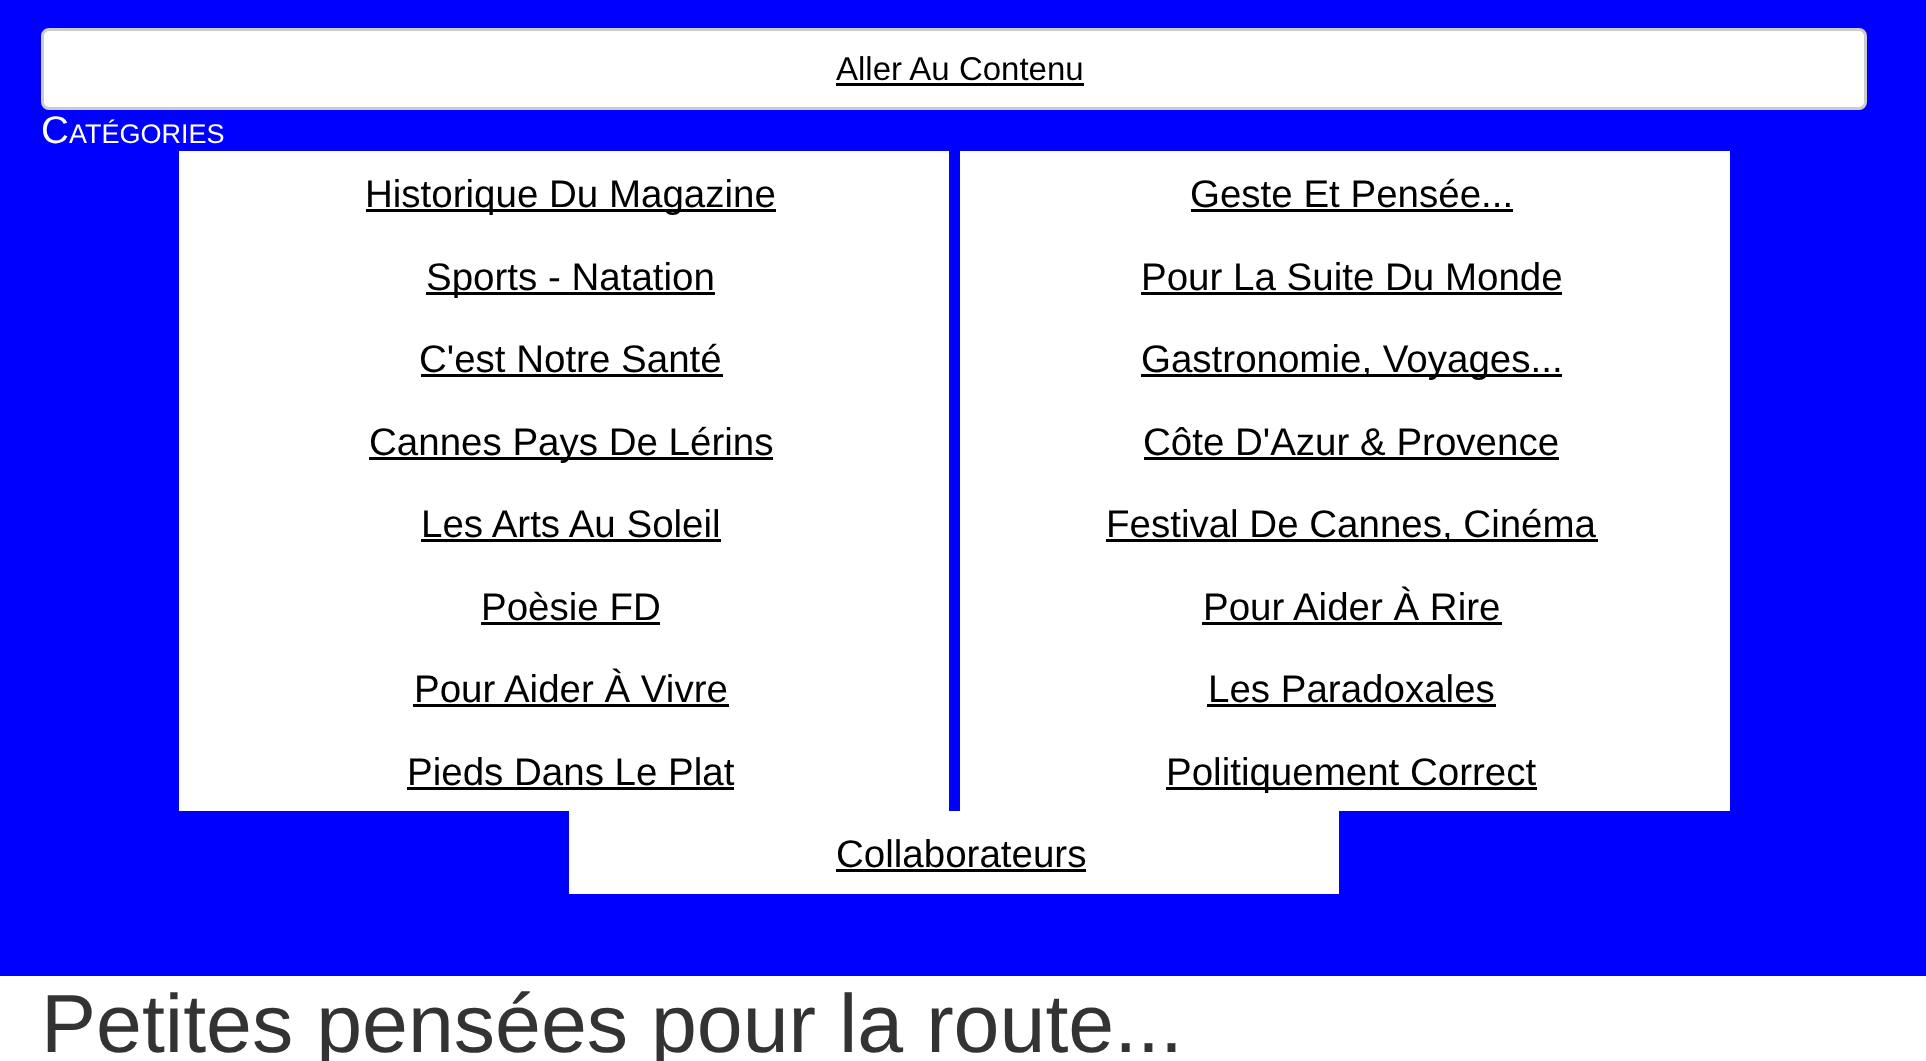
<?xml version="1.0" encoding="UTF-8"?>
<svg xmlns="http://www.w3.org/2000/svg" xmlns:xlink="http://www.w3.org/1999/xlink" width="1926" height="1061">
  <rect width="100%" height="100%" fill="#0000ff" />
  <rect x="42.5" y="29.5" width="1823" height="79" rx="6.5" fill="#ffffff" stroke="#cccccc" stroke-width="3" />
  <rect x="836" y="83" width="248" height="3" fill="#000000" />
  <rect x="179" y="151" width="770" height="660" fill="#ffffff" />
  <rect x="366" y="209" width="410" height="3" fill="#000000" />
  <rect x="960" y="151" width="770" height="660" fill="#ffffff" />
  <rect x="1191" y="209" width="322" height="3" fill="#000000" />
  <rect x="426" y="292" width="289" height="3" fill="#000000" />
  <rect x="1141" y="292" width="421" height="3" fill="#000000" />
  <rect x="421" y="374" width="302" height="3" fill="#000000" />
  <rect x="1141" y="374" width="421" height="3" fill="#000000" />
  <rect x="369" y="457" width="404" height="3" fill="#000000" />
  <rect x="1144" y="457" width="415" height="3" fill="#000000" />
  <rect x="421" y="539" width="300" height="3" fill="#000000" />
  <rect x="1106" y="539" width="492" height="3" fill="#000000" />
  <rect x="481" y="622" width="179" height="3" fill="#000000" />
  <rect x="1202" y="622" width="300" height="3" fill="#000000" />
  <rect x="413" y="704" width="316" height="3" fill="#000000" />
  <rect x="1207" y="704" width="289" height="3" fill="#000000" />
  <rect x="407" y="787" width="327" height="3" fill="#000000" />
  <rect x="1166" y="787" width="371" height="3" fill="#000000" />
  <rect x="569" y="811" width="770" height="83" fill="#ffffff" />
  <rect x="836" y="869" width="250" height="3" fill="#000000" />
  <rect y="976" width="1926" height="85" fill="#ffffff" />
  <text x="836" y="80" style="font-family: Liberation Sans; font-size: 33px; fill: #000000">Aller Au Contenu</text>
  <text x="41" y="143" style="font-family: Liberation Sans; font-size: 38.5px; fill: #ffffff">C</text>
  <text x="69" y="143" style="font-family: Liberation Sans; font-size: 27px; fill: #ffffff">ATÉGORIES</text>
  <text x="365" y="207" style="font-family: Liberation Sans; font-size: 38.5px; fill: #000000">Historique Du Magazine</text>
  <text x="1190" y="207" style="font-family: Liberation Sans; font-size: 38.5px; fill: #000000">Geste Et Pensée...</text>
  <text x="426" y="290" style="font-family: Liberation Sans; font-size: 38.5px; fill: #000000">Sports - Natation</text>
  <text x="1141" y="290" style="font-family: Liberation Sans; font-size: 38.5px; fill: #000000">Pour La Suite Du Monde</text>
  <text x="419" y="372" style="font-family: Liberation Sans; font-size: 38.5px; fill: #000000">C'est Notre Santé</text>
  <text x="1141" y="372" style="font-family: Liberation Sans; font-size: 38.5px; fill: #000000">Gastronomie, Voyages...</text>
  <text x="369" y="455" style="font-family: Liberation Sans; font-size: 38.5px; fill: #000000">Cannes Pays De Lérins</text>
  <text x="1143" y="455" style="font-family: Liberation Sans; font-size: 38.5px; fill: #000000">Côte D'Azur &amp; Provence</text>
  <text x="421" y="537" style="font-family: Liberation Sans; font-size: 38.5px; fill: #000000">Les Arts Au Soleil</text>
  <text x="1106" y="537" style="font-family: Liberation Sans; font-size: 38.5px; fill: #000000">Festival De Cannes, Cinéma</text>
  <text x="481" y="620" style="font-family: Liberation Sans; font-size: 38.5px; fill: #000000">Poèsie FD</text>
  <text x="1203" y="620" style="font-family: Liberation Sans; font-size: 38.5px; fill: #000000">Pour Aider À Rire</text>
  <text x="414" y="702" style="font-family: Liberation Sans; font-size: 38.5px; fill: #000000">Pour Aider À Vivre</text>
  <text x="1208" y="702" style="font-family: Liberation Sans; font-size: 38.5px; fill: #000000">Les Paradoxales</text>
  <text x="407" y="785" style="font-family: Liberation Sans; font-size: 38.5px; fill: #000000">Pieds Dans Le Plat</text>
  <text x="1166" y="785" style="font-family: Liberation Sans; font-size: 38.5px; fill: #000000">Politiquement Correct</text>
  <text x="836" y="867" style="font-family: Liberation Sans; font-size: 38.5px; fill: #000000">Collaborateurs</text>
  <text x="41" y="1052" style="font-family: Liberation Sans; font-size: 82.5px; fill: #333333">Petites pensées pour la route...</text>
</svg>
